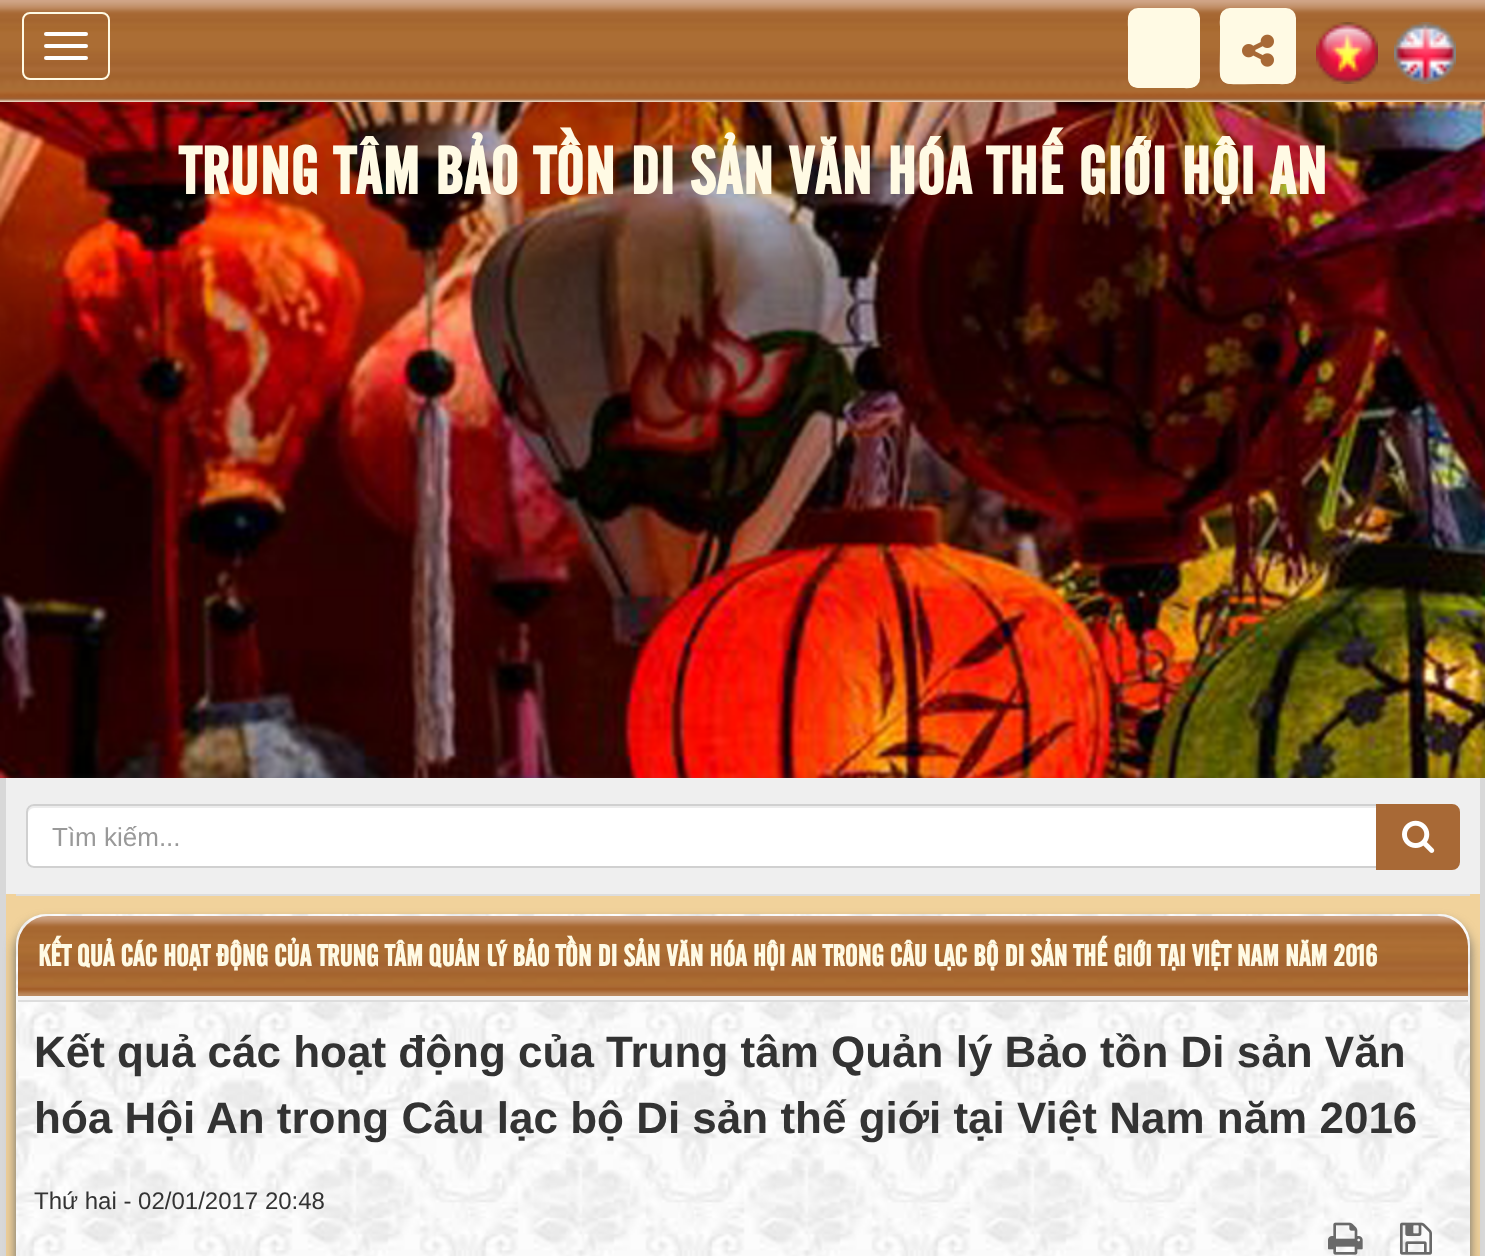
<?xml version="1.0" encoding="UTF-8"?>
<svg xmlns="http://www.w3.org/2000/svg" xmlns:xlink="http://www.w3.org/1999/xlink" width="1485" height="1256">
  <rect width="100%" height="100%" fill="#ffffff" />
  <image x="0" y="0" width="1485" height="778" xlink:href="image1.png" />
  <rect x="23" y="13" width="86" height="66" rx="7" fill="none" stroke="#fffae4" stroke-width="2" />
  <rect x="44" y="32" width="44" height="4" rx="2" fill="#ffffff" />
  <rect x="44" y="44" width="44" height="4" rx="2" fill="#ffffff" />
  <rect x="44" y="56" width="44" height="4" rx="2" fill="#ffffff" />
  <rect x="1128" y="8" width="72" height="80" rx="10" fill="#fffae4" />
  <path d="M 1195.5 83.5 c -3.5 4 -10 2.5 -14 2.5 h -35 c -17 0 -16.5 -1 -16.5 -18 v -40 c 0 -4.5 -1.5 -12 2.5 -15.5" fill="none" stroke="#fffae4" stroke-width="4" />
  <rect x="1220" y="8" width="76" height="76" rx="10" fill="#fffae4" />
  <path d="M 1291.5 79.5 c -3.5 4 -10.5 2.5 -15 2.5 h -18.5 c -42 0 -36 6 -36 -36 v -18.5 c 0 -4.5 -1.5 -11.5 2.5 -15" fill="none" stroke="#fffae4" stroke-width="4" />
  <image x="1242" y="34" width="32" height="33" xlink:href="image2.png" />
  <image x="1316" y="22" width="62" height="62" xlink:href="image3.png" />
  <image x="1394" y="22" width="62" height="62" xlink:href="image4.png" />
  <rect y="786" width="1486" height="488" fill="#666666" filter="blur(6px)" />
  <rect x="6" y="894" width="1474" height="362" fill="#f1d29b" />
  <rect x="1480" y="778" width="5" height="478" fill="#d8d8d8" />
  <rect y="778" width="6" height="478" fill="#d8d8d8" />
  <rect x="16" y="894" width="1454" height="2" fill="#dddddd" />
  <rect x="6" y="779" width="1474" height="115" fill="#efefef" />
  <path d="M 34 804 h 1344 v 64 h -1344 c -4.5 0 -8 -3.5 -8 -8 v -48 c 0 -4.5 3.5 -8 8 -8 z" fill="#ffffff" />
  <path d="M 34 808 h 1342 v -2 h -1342 c -3 0 -6 3 -6 6 v 2 c 0 -3 3 -6 6 -6 z" fill="#ececec" />
  <path d="M 34 805 h 1343 v 62 h -1343 c -4 0 -7 -3 -7 -7 v -48 c 0 -4 3 -7 7 -7 z" fill="none" stroke="#d0d0d0" stroke-width="2" />
  <path d="M 1377 805 h 75 c 4 0 7 3 7 7 v 50 c 0 4 -3 7 -7 7 h -75 z" fill="#a86936" stroke="#a86936" stroke-width="2" />
  <image x="1402" y="820" width="33" height="33" xlink:href="image5.png" />
  <rect x="16" y="922" width="1454" height="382" rx="30" fill="#666666" filter="blur(6px)" />
  <image x="16" y="914" width="1454" height="342" xlink:href="image6.png" />
  <path d="M 48 916 h 1390 c 16.5 0 30 13.5 30 30 v 56 h -1450 v -56 c 0 -16.5 13.5 -30 30 -30 z" fill="#f5f5f5" />
  <image x="18" y="916" width="1450" height="80" xlink:href="image7.png" />
  <rect x="18" y="1000" width="1450" height="2" fill="#dddddd" />
  <image x="1328" y="1222" width="35" height="33" xlink:href="image8.png" />
  <image x="1400" y="1222" width="32" height="33" xlink:href="image9.png" />
  <text x="179" y="194" style="font-family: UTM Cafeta; font-size: 66px; font-weight: bold; letter-spacing: 1px; fill: #fffae4">TRUNG TÂM BẢO TỒN DI SẢN VĂN HÓA THẾ GIỚI HỘI AN</text>
  <text x="52" y="846" style="font-family: Liberation Sans; font-size: 26px; fill: #999999">Tìm kiếm...</text>
  <text x="38" y="966" style="font-family: UTM Cafeta; font-size: 30px; font-weight: bold; fill: #fffae4">KẾT QUẢ CÁC HOẠT ĐỘNG CỦA TRUNG TÂM QUẢN LÝ BẢO TỒN DI SẢN VĂN HÓA HỘI AN TRONG CÂU LẠC BỘ DI SẢN THẾ GIỚI TẠI VIỆT NAM NĂM 2016</text>
  <text x="34" y="1067" style="font-family: Liberation Sans; font-size: 44px; font-weight: bold; fill: #333333">Kết quả các hoạt động của Trung tâm Quản lý Bảo tồn Di sản Văn</text>
  <text x="34" y="1133" style="font-family: Liberation Sans; font-size: 44px; font-weight: bold; fill: #333333">hóa Hội An trong Câu lạc bộ Di sản thế giới tại Việt Nam năm 2016</text>
  <text x="34" y="1209" style="font-family: Liberation Sans; font-size: 24px; fill: #333333">Thứ hai - 02/01/2017 20:48</text>
</svg>
